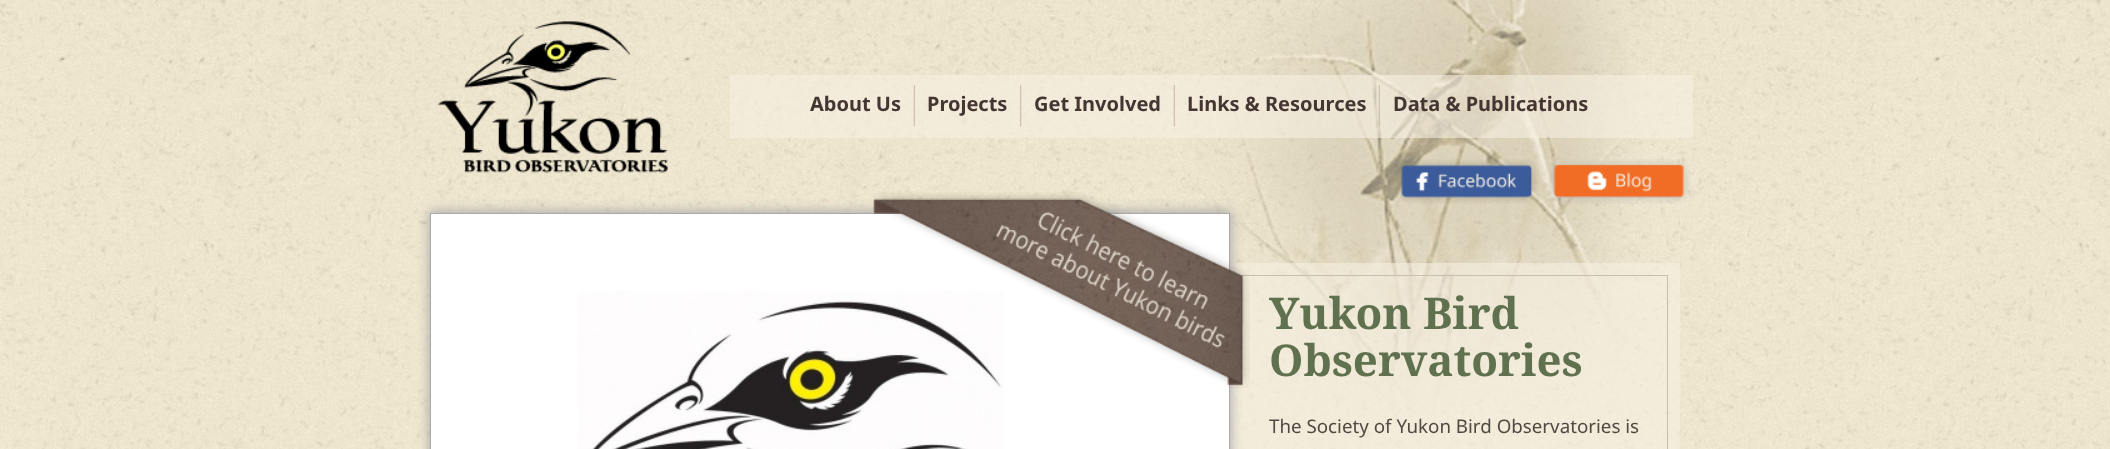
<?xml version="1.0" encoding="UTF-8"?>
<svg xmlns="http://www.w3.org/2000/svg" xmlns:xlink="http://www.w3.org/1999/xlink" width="2110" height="449">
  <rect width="100%" height="100%" fill="#ffffff" />
  <image x="0" y="0" width="2110" height="449" xlink:href="image1.png" />
  <image x="437" y="21" width="231" height="152" xlink:href="image2.png" />
  <image x="1182" y="0" width="498" height="425" xlink:href="image3.png" />
  <rect x="730" y="75" width="963" height="63" fill="#f6f0e2" fill-opacity="0.6" />
  <image x="913" y="85" width="2" height="42" xlink:href="image4.png" />
  <image x="1020" y="85" width="2" height="42" xlink:href="image5.png" />
  <image x="1173" y="85" width="2" height="42" xlink:href="image6.png" />
  <image x="1378" y="85" width="2" height="42" xlink:href="image7.png" />
  <image x="1396" y="159" width="143" height="45" xlink:href="image8.png" />
  <image x="1548" y="159" width="143" height="45" xlink:href="image9.png" />
  <rect x="1230" y="263" width="450" height="186" fill="#f6f0e2" fill-opacity="0.6" />
  <rect x="1205.5" y="275.5" width="462" height="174" fill="none" stroke="#c6bfb0" />
  <rect x="429" y="211" width="802" height="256" fill="#aaaaaa" filter="blur(6px)" />
  <rect x="430.5" y="213.5" width="799" height="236" fill="#ffffff" stroke="#aaaaaa" />
  <image x="578" y="291" width="426" height="158" xlink:href="image10.png" />
  <image x="873" y="192" width="377" height="197" xlink:href="image11.png" />
  <text x="810" y="111" style="font-family: Noto Sans; font-size: 20px; font-weight: bold; fill: #443632">About Us</text>
  <text x="927" y="111" style="font-family: Noto Sans; font-size: 20px; font-weight: bold; fill: #443632">Projects</text>
  <text x="1034" y="111" style="font-family: Noto Sans; font-size: 20px; font-weight: bold; fill: #443632">Get Involved</text>
  <text x="1187" y="111" style="font-family: Noto Sans; font-size: 20px; font-weight: bold; fill: #443632">Links &amp; Resources</text>
  <text x="1393" y="111" style="font-family: Noto Sans; font-size: 20px; font-weight: bold; fill: #443632">Data &amp; Publications</text>
  <text x="1269" y="329" style="font-family: Noto Serif; font-size: 43.75px; font-weight: bold; fill: #60714f">Yukon Bird</text>
  <text x="1269" y="376" style="font-family: Noto Serif; font-size: 43.75px; font-weight: bold; fill: #60714f">Observatories</text>
  <text x="1269" y="433" style="font-family: Noto Sans; font-size: 18.75px; fill: #4f4b43">The Society of Yukon Bird Observatories is</text>
</svg>
